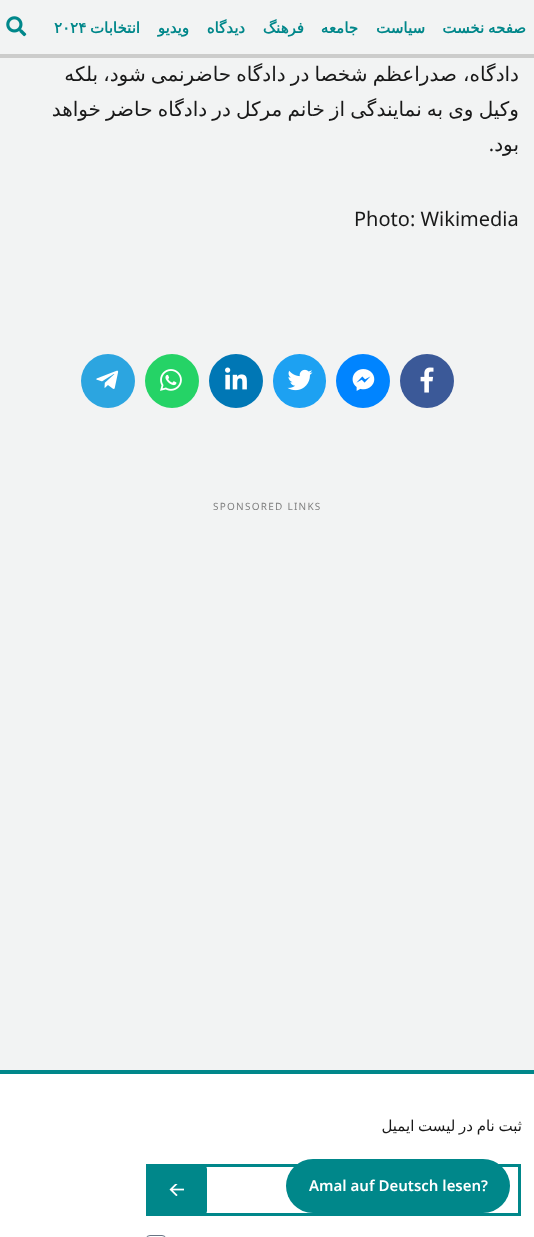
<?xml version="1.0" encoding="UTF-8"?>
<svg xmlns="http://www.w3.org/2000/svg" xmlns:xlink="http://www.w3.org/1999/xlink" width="534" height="1237">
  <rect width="100%" height="100%" fill="#f2f3f3" />
  <rect y="54" width="534" height="4" fill="#cccccb" />
  <image x="6" y="16" width="21" height="21" xlink:href="image1.png" />
  <circle cx="427" cy="381" r="27" fill="#3b5998" />
  <image x="420" y="367" width="14" height="26" xlink:href="image2.png" />
  <circle cx="363" cy="381" r="27" fill="#0084ff" />
  <image x="352" y="369" width="23" height="22" xlink:href="image3.png" />
  <rect x="273" y="354" width="53" height="54" rx="26.5" fill="#1da1f2" />
  <image x="287" y="369" width="26" height="22" xlink:href="image4.png" />
  <circle cx="236" cy="381" r="27" fill="#0077b5" />
  <image x="225" y="367" width="22" height="23" xlink:href="image5.png" />
  <circle cx="172" cy="381" r="27" fill="#25d366" />
  <image x="160" y="369" width="22" height="22" xlink:href="image6.png" />
  <circle cx="108" cy="381" r="27" fill="#2ca5e0" />
  <image x="96" y="370" width="23" height="19" xlink:href="image7.png" />
  <rect y="1074" width="534" height="163" fill="#ffffff" />
  <rect y="1070" width="534" height="4" fill="#00878a" />
  <rect x="147.5" y="1165.5" width="372" height="49" fill="none" stroke="#00878a" stroke-width="3" />
  <path d="M 203 1215 h -53 c -2 0 -3 -2 -3 -4 v -42 c 0 -2 1 -4 3 -4 h 53 c 2 0 4 2 4 4 v 42 c 0 2 -2 4 -4 4 z" fill="#00878a" />
  <image x="169" y="1184" width="15" height="12" xlink:href="image8.png" />
  <rect x="146.5" y="1235.5" width="19" height="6" rx="3.5" fill="none" stroke="#687484" />
  <rect x="286" y="1159" width="224" height="54" rx="27" fill="#00878a" />
  <text x="526" y="33" word-spacing="-1" style="font-family: DejaVu Sans; font-size: 15px; font-weight: bold; direction: rtl; fill: #00878a">صفحه نخست</text>
  <text x="425" y="33" style="font-family: DejaVu Sans; font-size: 15px; font-weight: bold; direction: rtl; fill: #00878a">سیاست</text>
  <text x="358" y="33" style="font-family: DejaVu Sans; font-size: 15px; font-weight: bold; direction: rtl; fill: #00878a">جامعه</text>
  <text x="304" y="33" style="font-family: DejaVu Sans; font-size: 15px; font-weight: bold; direction: rtl; fill: #00878a">فرهنگ</text>
  <text x="245" y="33" style="font-family: DejaVu Sans; font-size: 15px; font-weight: bold; direction: rtl; fill: #00878a">دیدگاه</text>
  <text x="189" y="33" style="font-family: DejaVu Sans; font-size: 15px; font-weight: bold; direction: rtl; fill: #00878a">ویدیو</text>
  <text x="140" y="33" style="font-family: DejaVu Sans; font-size: 15px; font-weight: bold; direction: rtl; fill: #00878a">انتخابات</text>
  <text x="54" y="33" style="font-family: DejaVu Sans; font-size: 15px; font-weight: bold; fill: #00878a">۲۰۲۴</text>
  <text x="519" y="81" style="font-family: DejaVu Sans; font-size: 20px; direction: rtl; fill: #191919">دادگاه،</text>
  <text x="457" y="81" word-spacing="-1.25" style="font-family: DejaVu Sans; font-size: 20px; direction: rtl; fill: #191919">صدراعظم شخصا در دادگاه حاضرنمی شود، بلکه</text>
  <text x="519" y="116" word-spacing="-1.25" style="font-family: DejaVu Sans; font-size: 20px; direction: rtl; fill: #191919">وکیل وی به نمایندگی از خانم مرکل در دادگاه حاضر خواهد</text>
  <text x="519" y="151" style="font-family: DejaVu Sans; font-size: 20px; direction: rtl; fill: #191919">بود</text>
  <text x="494" y="151" style="font-family: Noto Sans; font-size: 20px; direction: rtl; fill: #191919">.</text>
  <text x="354" y="226" style="font-family: Noto Sans; font-size: 20px; fill: #191919">Photo: Wikimedia</text>
  <text x="213" y="510" style="font-family: Noto Sans; font-size: 10px; letter-spacing: 1.25px; fill: #808080">SPONSORED LINKS</text>
  <text x="522" y="1131" word-spacing="-1" style="font-family: DejaVu Sans; font-size: 15px; direction: rtl; fill: #191919">ثبت نام در لیست ایمیل</text>
  <text x="309" y="1191" style="font-family: Noto Sans; font-size: 15px; font-weight: 600; fill: #ffffff">Amal auf Deutsch lesen?</text>
</svg>
